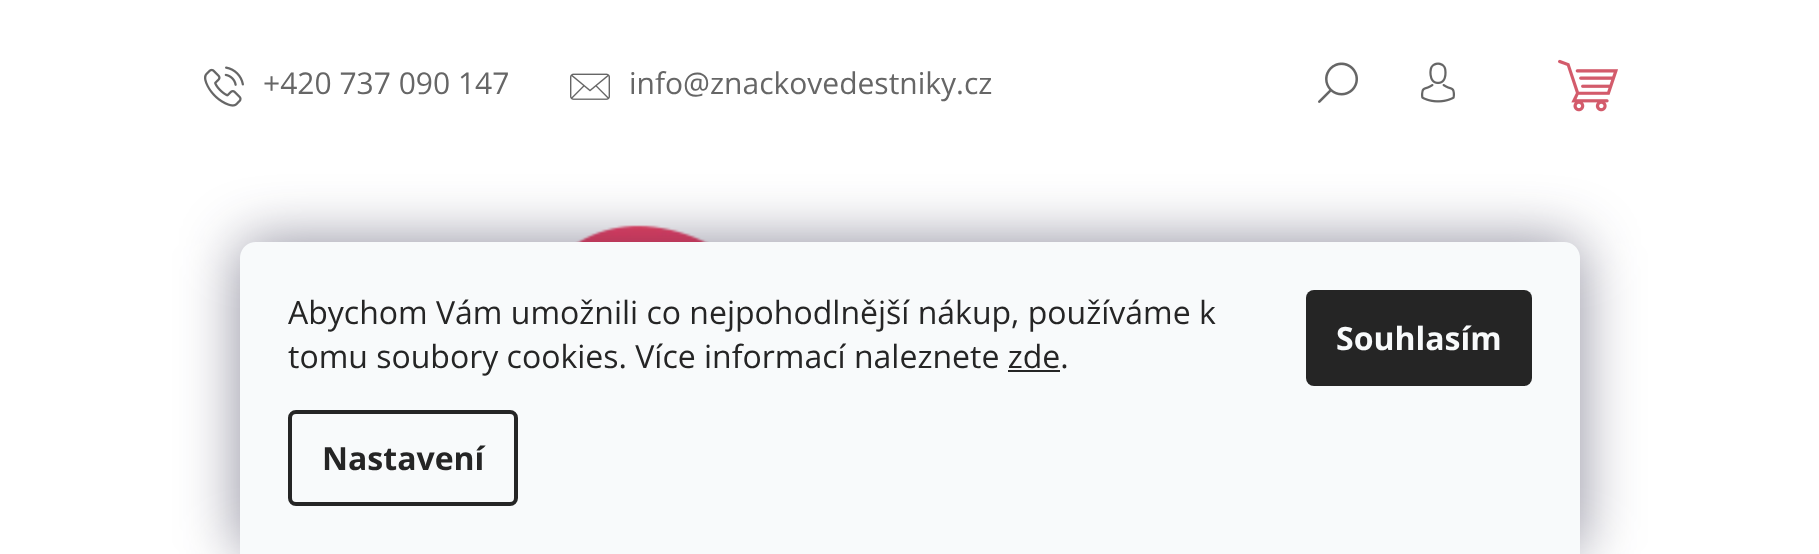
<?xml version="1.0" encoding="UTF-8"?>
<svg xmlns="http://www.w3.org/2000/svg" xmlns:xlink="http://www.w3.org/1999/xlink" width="1819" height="554">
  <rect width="100%" height="100%" fill="#ffffff" />
  <image x="204" y="66" width="40" height="41" xlink:href="image1.png" />
  <image x="570" y="73" width="40" height="27" xlink:href="image2.png" />
  <image x="1318" y="62" width="40" height="41" xlink:href="image3.png" />
  <image x="1421" y="62" width="34" height="41" xlink:href="image4.png" />
  <image x="1558" y="59" width="60" height="53" xlink:href="image5.png" />
  <image x="575" y="225" width="134" height="17" xlink:href="image6.png" />
  <rect x="240" y="242" width="1340" height="312" rx="16" fill="#1b1939" fill-opacity="0.5" filter="blur(30px)" />
  <path d="M 256 242 h 1308 c 9 0 16 7 16 16 v 296 h -1340 v -296 c 0 -9 7 -16 16 -16 z" fill="#f8fafb" />
  <rect x="1008" y="370" width="52" height="2" fill="#252525" />
  <rect x="290" y="412" width="226" height="92" rx="6" fill="none" stroke="#252525" stroke-width="4" />
  <rect x="1306" y="290" width="226" height="96" rx="8" fill="#252525" />
  <text x="263" y="94" style="font-family: Open Sans; font-size: 30px; fill: #666666">+420 737 090 147</text>
  <text x="629" y="94" style="font-family: Open Sans; font-size: 30px; fill: #666666">info@znackovedestniky.cz</text>
  <text x="288" y="324" style="font-family: Open Sans; font-size: 32px; fill: #252525">Abychom Vám umožnili co nejpohodlnější nákup, používáme k</text>
  <text x="288" y="368" style="font-family: Open Sans; font-size: 32px; fill: #252525">tomu soubory cookies. Více informací naleznete zde.</text>
  <text x="322" y="470" style="font-family: Open Sans; font-size: 32px; font-weight: bold; fill: #252525">Nastavení</text>
  <text x="1336" y="350" style="font-family: Open Sans; font-size: 32px; font-weight: bold; fill: #f8fafb">Souhlasím</text>
</svg>
